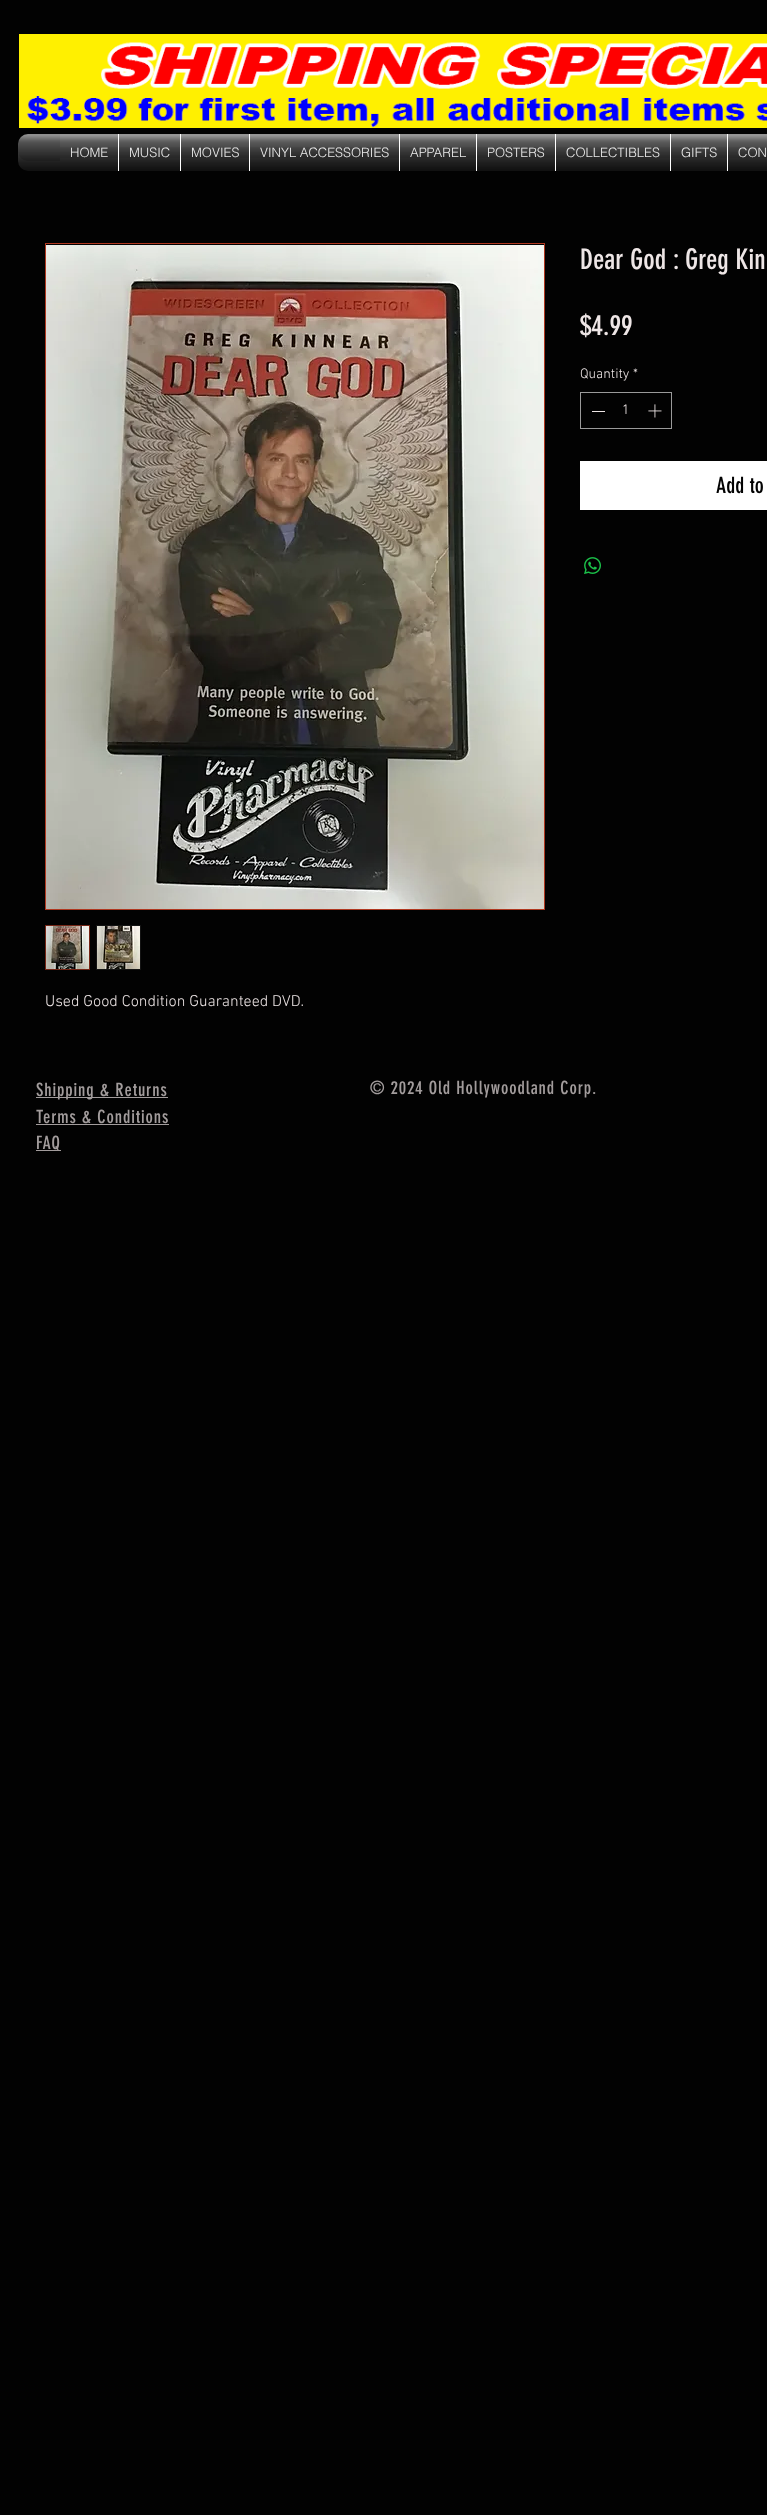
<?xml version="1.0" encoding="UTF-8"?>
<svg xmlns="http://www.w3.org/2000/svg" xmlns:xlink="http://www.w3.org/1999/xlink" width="767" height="2515">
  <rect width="100%" height="100%" fill="#020202" />
  <image x="19" y="34" width="748" height="94" xlink:href="image1.png" />
  <image x="18" y="134" width="42" height="37" xlink:href="image2.png" />
  <image x="18" y="134" width="42" height="27" xlink:href="image3.png" />
  <rect x="118" y="134" width="1" height="37" fill="#ffffff" />
  <rect x="180" y="134" width="1" height="37" fill="#ffffff" />
  <rect x="249" y="134" width="1" height="37" fill="#ffffff" />
  <rect x="399" y="134" width="1" height="37" fill="#ffffff" />
  <rect x="476" y="134" width="1" height="37" fill="#ffffff" />
  <rect x="555" y="134" width="1" height="37" fill="#ffffff" />
  <rect x="670" y="134" width="1" height="37" fill="#ffffff" />
  <rect x="727" y="134" width="1" height="37" fill="#ffffff" />
  <rect x="580.5" y="392.5" width="91" height="36" fill="none" stroke="#9a9a9a" />
  <rect x="592" y="411" width="13" height="1" fill="#eee6e6" />
  <image x="648" y="404" width="14" height="14" xlink:href="image22.png" />
  <rect x="580" y="461" width="187" height="49" fill="#ffffff" />
  <image x="584" y="557" width="17" height="17" xlink:href="image23.png" />
  <rect x="45.5" y="243.5" width="499" height="666" fill="none" stroke="#b03820" />
  <image x="46" y="245" width="498" height="664" xlink:href="image24.png" />
  <rect x="45.5" y="925.5" width="44" height="44" fill="none" stroke="#752515" />
  <image x="46" y="926" width="43" height="43" xlink:href="image25.png" />
  <rect x="96" y="925" width="45" height="45" fill="#141414" />
  <image x="97" y="926" width="43" height="43" xlink:href="image26.png" />
  <rect x="36" y="1097" width="132" height="1" fill="#a29c9c" />
  <rect x="36" y="1124" width="133" height="1" fill="#a29c9c" />
  <rect x="36" y="1150" width="25" height="1" fill="#a29c9c" />
  <text x="70" y="157" style="font-family: helvetica; font-size: 13px; font-weight: 300; fill: #ffffff">HOME</text>
  <image x="60" y="134" width="58" height="37" xlink:href="image4.png" />
  <image x="60" y="147" width="58" height="11" xlink:href="image5.png" />
  <text x="129" y="157" style="font-family: helvetica; font-size: 13px; font-weight: 300; fill: #ffffff">MUSIC</text>
  <image x="119" y="134" width="61" height="37" xlink:href="image6.png" />
  <image x="119" y="147" width="61" height="11" xlink:href="image7.png" />
  <text x="191" y="157" style="font-family: helvetica; font-size: 13px; font-weight: 300; fill: #ffffff">MOVIES</text>
  <image x="181" y="134" width="68" height="37" xlink:href="image8.png" />
  <image x="181" y="147" width="68" height="11" xlink:href="image9.png" />
  <text x="260" y="157" style="font-family: helvetica; font-size: 13px; font-weight: 300; fill: #ffffff">VINYL ACCESSORIES</text>
  <image x="250" y="134" width="149" height="37" xlink:href="image10.png" />
  <image x="250" y="147" width="149" height="11" xlink:href="image11.png" />
  <text x="410" y="157" style="font-family: helvetica; font-size: 13px; font-weight: 300; fill: #ffffff">APPAREL</text>
  <image x="400" y="134" width="76" height="37" xlink:href="image12.png" />
  <image x="400" y="147" width="76" height="11" xlink:href="image13.png" />
  <text x="487" y="157" style="font-family: helvetica; font-size: 13px; font-weight: 300; fill: #ffffff">POSTERS</text>
  <image x="477" y="134" width="78" height="37" xlink:href="image14.png" />
  <image x="477" y="147" width="78" height="11" xlink:href="image15.png" />
  <text x="566" y="157" style="font-family: helvetica; font-size: 13px; font-weight: 300; fill: #ffffff">COLLECTIBLES</text>
  <image x="556" y="134" width="114" height="37" xlink:href="image16.png" />
  <image x="556" y="147" width="114" height="11" xlink:href="image17.png" />
  <text x="681" y="157" style="font-family: helvetica; font-size: 13px; font-weight: 300; fill: #ffffff">GIFTS</text>
  <image x="671" y="134" width="56" height="37" xlink:href="image18.png" />
  <image x="671" y="147" width="56" height="11" xlink:href="image19.png" />
  <text x="738" y="157" style="font-family: helvetica; font-size: 13px; font-weight: 300; fill: #ffffff">CON</text>
  <image x="728" y="134" width="39" height="37" xlink:href="image20.png" />
  <image x="728" y="147" width="39" height="11" xlink:href="image21.png" />
  <text x="580" y="269" style="font-family: 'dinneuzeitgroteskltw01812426'; font-size: 28px; fill: #eee6e6">Dear God : Greg Kin</text>
  <text x="580" y="335" style="font-family: 'dinneuzeitgroteskltw01812426'; font-size: 28px; fill: #eee6e6">$4.99</text>
  <text x="580" y="378" style="font-family: 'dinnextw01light'; font-size: 14px; font-weight: 300; fill: #eee6e6">Quantity</text>
  <text x="633" y="378" style="font-family: 'dinnextw01light'; font-size: 14px; font-weight: 300; fill: #eee6e6">*</text>
  <text x="622" y="414" style="font-family: 'dinnextw01light'; font-size: 14px; font-weight: 300; fill: #eee6e6">1</text>
  <text x="716" y="493" style="font-family: 'dinneuzeitgroteskltw01812426'; font-size: 22px; fill: #020202">Add to</text>
  <text x="45" y="1006" style="font-family: 'dinnextw01light'; font-size: 16px; font-weight: 300; fill: #eee6e6">Used Good Condition Guaranteed DVD.</text>
  <text x="36" y="1096" style="font-family: 'dinneuzeitgroteskltw01812426'; font-size: 18px; letter-spacing: 0.9px; fill: #a29c9c">Shipping &amp; Returns</text>
  <text x="370" y="1094" style="font-family: 'dinneuzeitgroteskltw01812426'; font-size: 18px; letter-spacing: 0.9px; fill: #a29c9c">© 2024 Old Hollywoodland Corp.</text>
  <text x="36" y="1123" style="font-family: 'dinneuzeitgroteskltw01812426'; font-size: 18px; letter-spacing: 0.9px; fill: #a29c9c">Terms &amp; Conditions</text>
  <text x="36" y="1149" style="font-family: 'dinneuzeitgroteskltw01812426'; font-size: 18px; letter-spacing: 0.9px; fill: #a29c9c">FAQ</text>
</svg>
